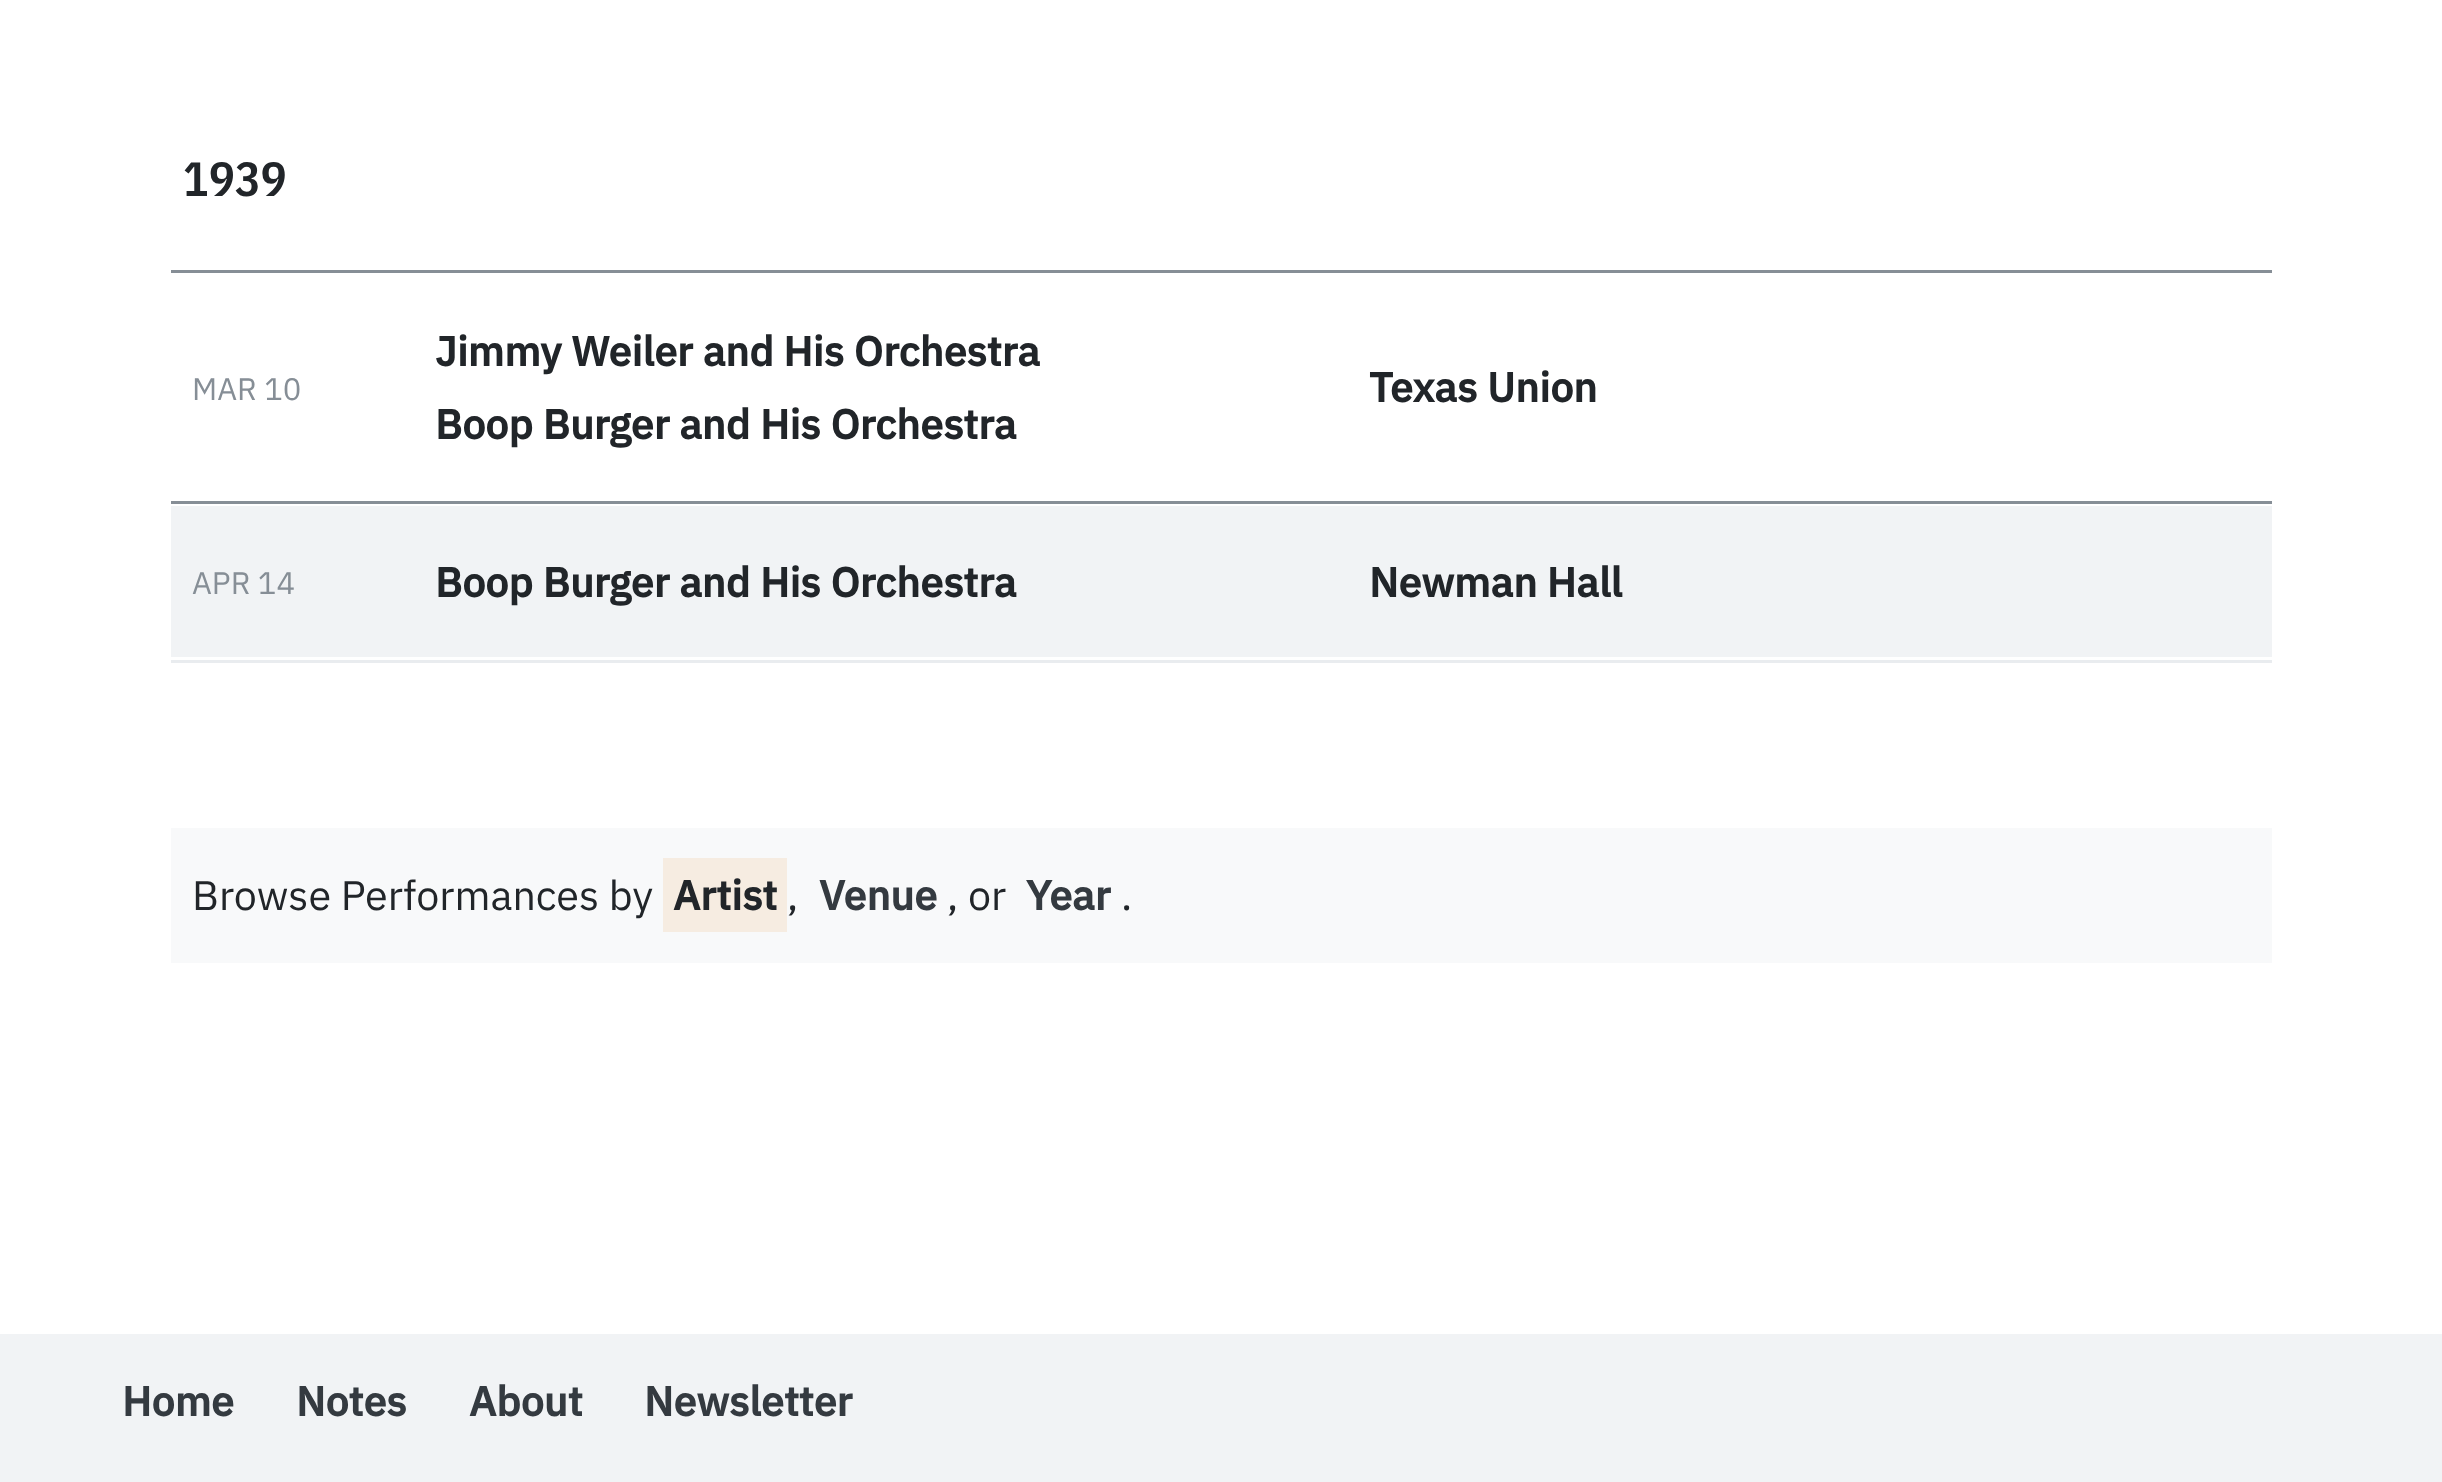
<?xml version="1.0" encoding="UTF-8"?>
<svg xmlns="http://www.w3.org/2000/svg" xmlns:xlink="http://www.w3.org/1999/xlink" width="2442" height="1482">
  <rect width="100%" height="100%" fill="#f1f3f5" />
  <rect width="2442" height="1334" fill="#ffffff" />
  <rect x="171" y="270" width="2101" height="3" fill="#868e96" />
  <rect x="171" y="506" width="2101" height="151" fill="#f1f3f5" />
  <rect x="171" y="501" width="2101" height="3" fill="#868e96" />
  <rect x="171" y="660" width="2101" height="3" fill="#e9ecef" />
  <rect x="171" y="828" width="2101" height="135" fill="#f8f9fa" />
  <rect x="663" y="858" width="124" height="74" fill="#f6ece1" />
  <text x="183" y="196" style="font-family: IBM Plex Sans Condensed; font-size: 48px; font-weight: 600; fill: #212529">1939</text>
  <text x="192" y="400" style="font-family: IBM Plex Sans; font-size: 31px; fill: #868e96">MAR 10</text>
  <text x="435" y="366" style="font-family: IBM Plex Sans; font-size: 41.25px; font-weight: bold; fill: #212529">Jimmy Weiler and His Orchestra</text>
  <text x="435" y="439" style="font-family: IBM Plex Sans; font-size: 41.25px; font-weight: bold; fill: #212529">Boop Burger and His Orchestra</text>
  <text x="1369" y="402" style="font-family: IBM Plex Sans; font-size: 41.25px; font-weight: bold; fill: #212529">Texas Union</text>
  <text x="192" y="594" style="font-family: IBM Plex Sans; font-size: 31px; fill: #868e96">APR 14</text>
  <text x="435" y="597" style="font-family: IBM Plex Sans; font-size: 41.25px; font-weight: bold; fill: #212529">Boop Burger and His Orchestra</text>
  <text x="1369" y="597" style="font-family: IBM Plex Sans; font-size: 41.25px; font-weight: bold; fill: #212529">Newman Hall</text>
  <text x="192" y="910" style="font-family: IBM Plex Sans; font-size: 41.25px; fill: #212529">Browse Performances by</text>
  <text x="673" y="910" style="font-family: IBM Plex Sans; font-size: 41.25px; font-weight: bold; fill: #212529">Artist</text>
  <text x="787" y="910" style="font-family: IBM Plex Sans; font-size: 41.25px; fill: #212529">,</text>
  <text x="819" y="910" style="font-family: IBM Plex Sans; font-size: 41.25px; font-weight: bold; fill: #343a40">Venue</text>
  <text x="947" y="910" style="font-family: IBM Plex Sans; font-size: 41.25px; fill: #212529">, or</text>
  <text x="1026" y="910" style="font-family: IBM Plex Sans; font-size: 41.25px; font-weight: bold; fill: #343a40">Year</text>
  <text x="1121" y="910" style="font-family: IBM Plex Sans; font-size: 41.25px; fill: #212529">.</text>
  <text x="122" y="1416" style="font-family: IBM Plex Sans; font-size: 41.25px; font-weight: bold; fill: #343a40">Home</text>
  <text x="296" y="1416" style="font-family: IBM Plex Sans; font-size: 41.25px; font-weight: bold; fill: #343a40">Notes</text>
  <text x="469" y="1416" style="font-family: IBM Plex Sans; font-size: 41.25px; font-weight: bold; fill: #343a40">About</text>
  <text x="644" y="1416" style="font-family: IBM Plex Sans; font-size: 41.25px; font-weight: bold; fill: #343a40">Newsletter</text>
</svg>
